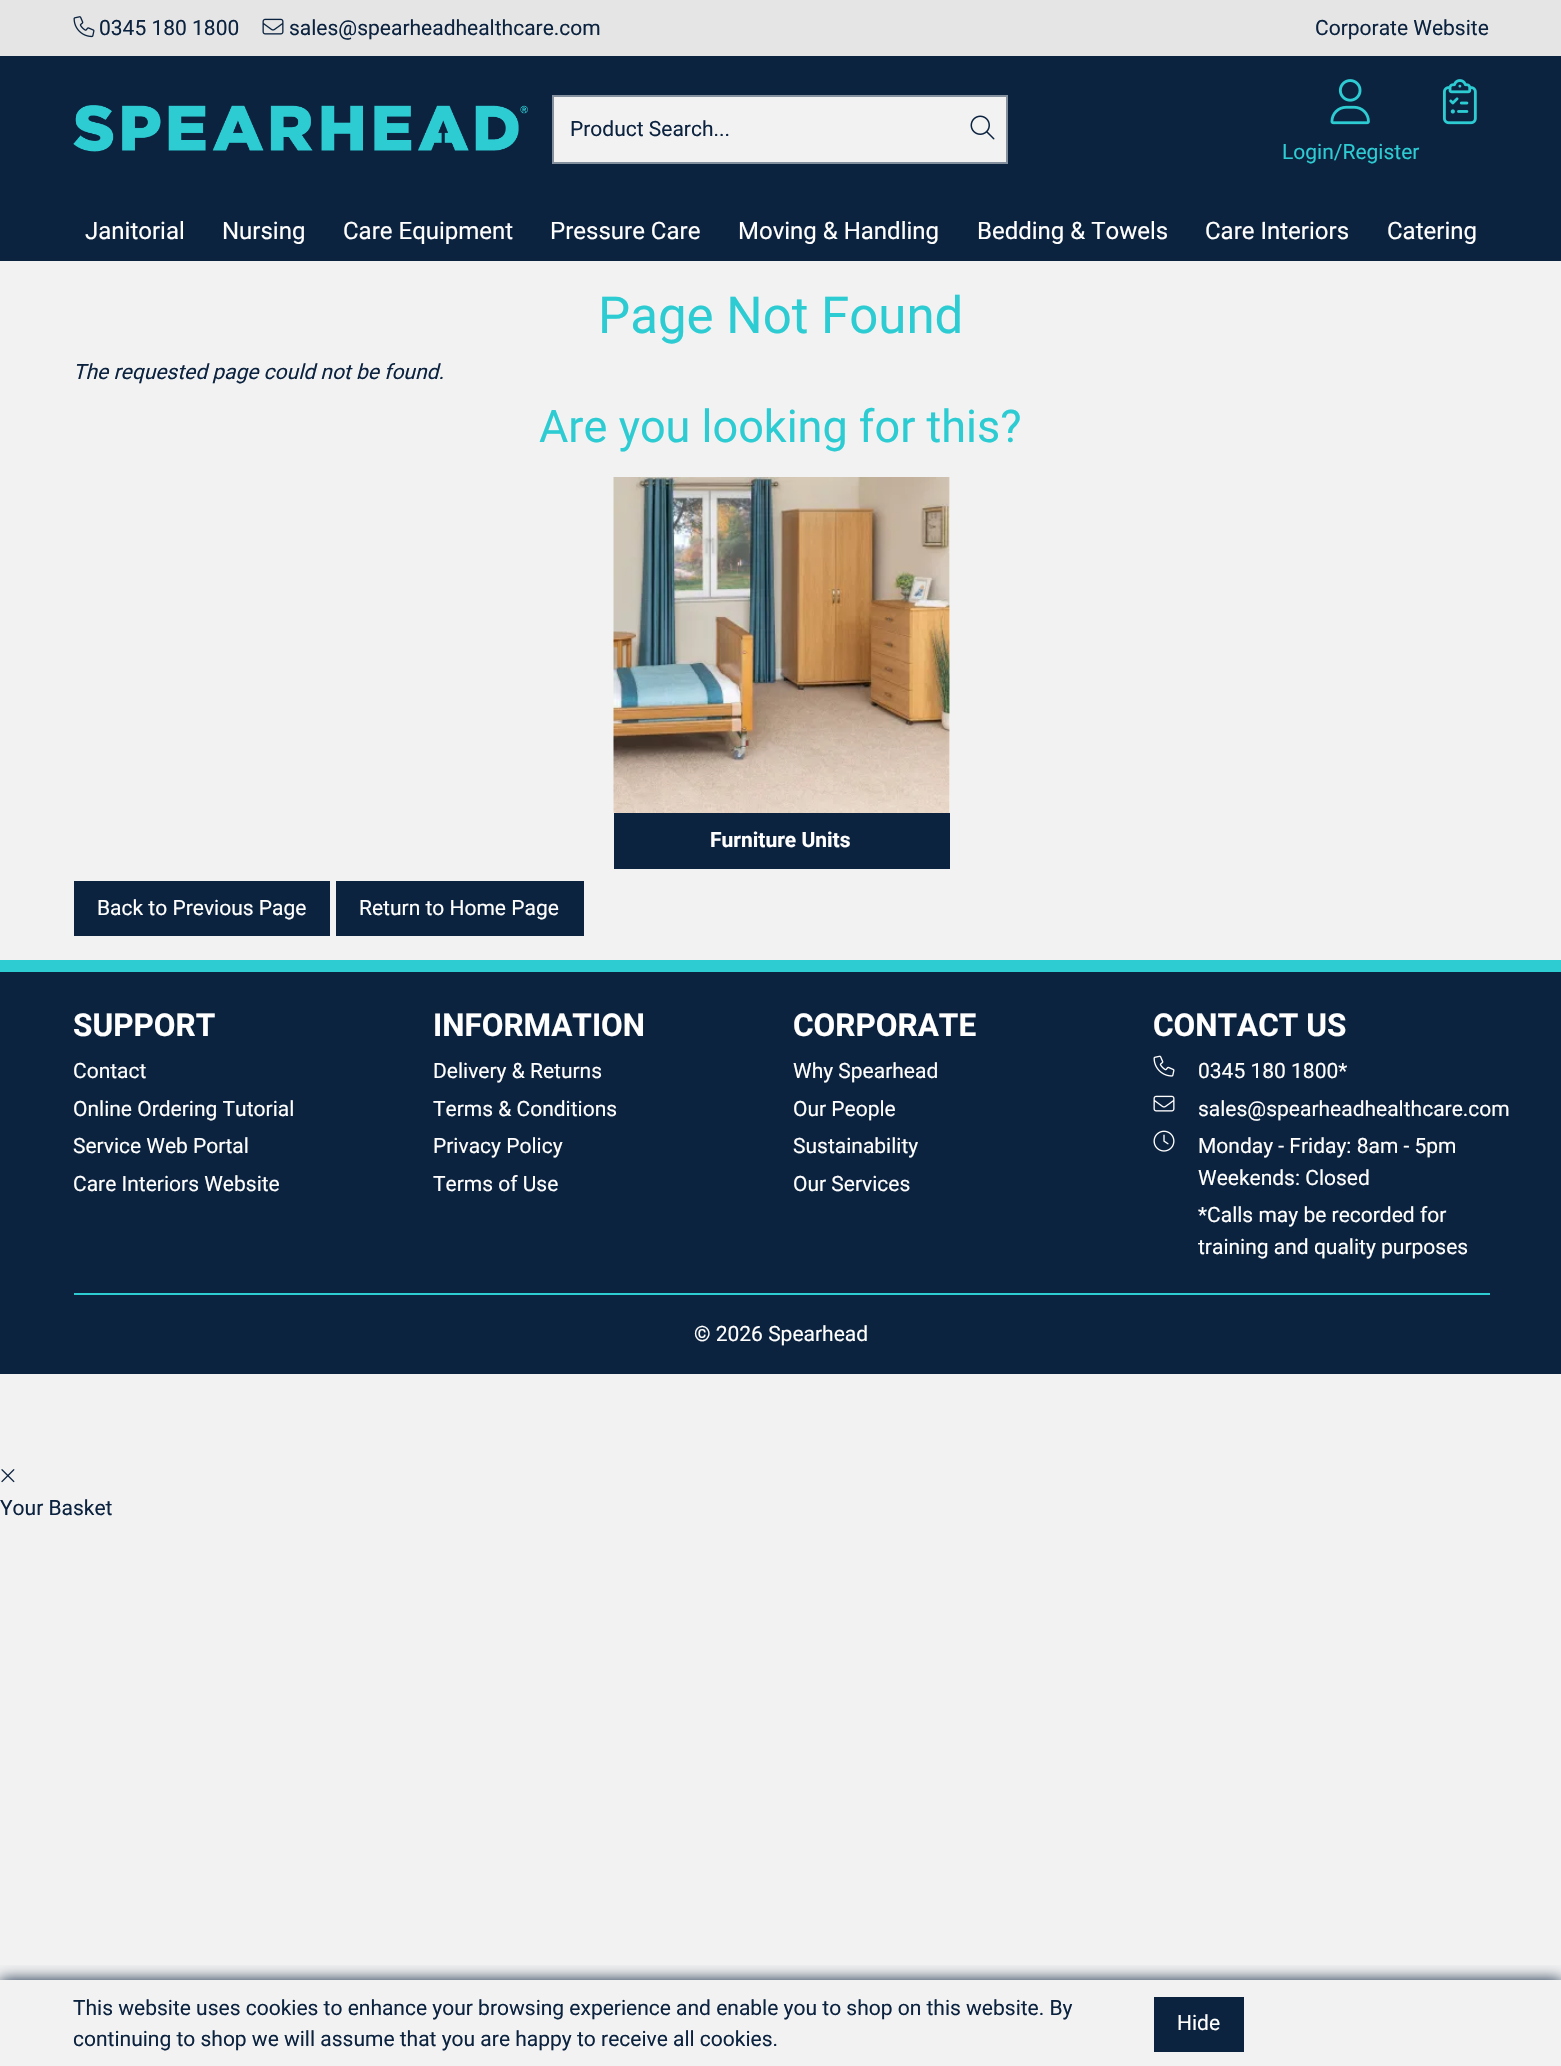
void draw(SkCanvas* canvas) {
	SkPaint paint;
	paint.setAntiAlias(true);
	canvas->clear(0xfff2f2f2);
	paint.setColor(0xffe5e5e5);
	canvas->drawRect(SkRect::MakeXYWH(0, 0, 1561, 56), paint);
	canvas->drawImageRect(SkImages::DeferredFromEncodedData(SkData::MakeFromFileName("img1.png")), SkRect::MakeXYWH(73, 16, 22, 22), SkSamplingOptions());
	SkFont f1(fontMgr->matchFamilyStyle("Roboto", SkFontStyle::Normal()), 21);
	f1.setSubpixel(true);
	paint.setColor(0xff0c2340);
	canvas->drawString("0345 180 1800", 99, 35, f1, paint);
	canvas->drawImageRect(SkImages::DeferredFromEncodedData(SkData::MakeFromFileName("img2.png")), SkRect::MakeXYWH(262, 18, 22, 17), SkSamplingOptions());
	canvas->drawString("sales@spearheadhealthcare.com", 289, 35, f1, paint);
	canvas->drawString("Corporate Website", 1315, 35, f1, paint);
	canvas->drawRect(SkRect::MakeXYWH(0, 56, 1561, 205), paint);
	canvas->drawImageRect(SkImages::DeferredFromEncodedData(SkData::MakeFromFileName("img3.png")), SkRect::MakeXYWH(73, 105, 455, 47), SkSamplingOptions());
	paint.setColor(0xfff2f2f2);
	canvas->drawRect(SkRect::MakeXYWH(553, 96, 454, 67), paint);
	paint.setStroke(true);
	paint.setStrokeWidth(2);
	paint.setColor(0xff85909f);
	canvas->drawRect(SkRect::MakeXYWH(553, 96, 454, 67), paint);
	paint.setStroke(false);
	paint.setColor(0xff0c2340);
	canvas->drawString("Product Search...", 570, 136, f1, paint);
	canvas->drawImageRect(SkImages::DeferredFromEncodedData(SkData::MakeFromFileName("img4.png")), SkRect::MakeXYWH(970, 115, 25, 25), SkSamplingOptions());
	canvas->drawImageRect(SkImages::DeferredFromEncodedData(SkData::MakeFromFileName("img5.png")), SkRect::MakeXYWH(1443, 79, 34, 46), SkSamplingOptions());
	canvas->drawImageRect(SkImages::DeferredFromEncodedData(SkData::MakeFromFileName("img6.png")), SkRect::MakeXYWH(1330, 79, 40, 46), SkSamplingOptions());
	paint.setColor(0xff2dccd3);
	canvas->drawString("Login/Register", 1282, 159, f1, paint);
	SkFont f2(fontMgr->matchFamilyStyle("Roboto", SkFontStyle::Normal()), 24);
	f2.setSubpixel(true);
	paint.setColor(0xffffffff);
	canvas->drawString("Janitorial", 85, 239, f2, paint);
	canvas->drawString("Nursing", 222, 239, f2, paint);
	canvas->drawString("Care Equipment", 343, 239, f2, paint);
	canvas->drawString("Pressure Care", 550, 239, f2, paint);
	canvas->drawString("Moving & Handling", 738, 239, f2, paint);
	canvas->drawString("Bedding & Towels", 977, 239, f2, paint);
	canvas->drawString("Care Interiors", 1205, 239, f2, paint);
	canvas->drawString("Catering", 1387, 239, f2, paint);
	SkFont f3(fontMgr->matchFamilyStyle("Roboto", SkFontStyle::Normal()), 51);
	f3.setSubpixel(true);
	paint.setColor(0xff2dccd3);
	canvas->drawString("Page Not Found", 598, 333, f3, paint);
	SkFont f4(fontMgr->matchFamilyStyle("Roboto", SkFontStyle::Italic()), 21);
	f4.setSubpixel(true);
	paint.setColor(0xff0c2340);
	canvas->drawString("The requested page could not be found.", 73, 379, f4, paint);
	SkFont f5(fontMgr->matchFamilyStyle("Roboto", SkFontStyle::Normal()), 45);
	f5.setSubpixel(true);
	paint.setColor(0xff2dccd3);
	canvas->drawString("Are you looking for this?", 539, 442, f5, paint);
	paint.setColor(0xffffffff);
	canvas->drawRect(SkRect::MakeXYWH(949, 477, 1, 336), paint);
	canvas->drawImageRect(SkImages::DeferredFromEncodedData(SkData::MakeFromFileName("img7.png")), SkRect::MakeXYWH(613, 477, 337, 336), SkSamplingOptions());
	paint.setColor(0xff0c2340);
	canvas->drawRect(SkRect::MakeXYWH(614, 813, 336, 56), paint);
	SkFont f6(fontMgr->matchFamilyStyle("Roboto", SkFontStyle::Bold()), 21);
	f6.setSubpixel(true);
	paint.setColor(0xffffffff);
	canvas->drawString("Furniture Units", 710, 847, f6, paint);
	paint.setColor(0xff0c2340);
	canvas->drawRect(SkRect::MakeXYWH(74, 881, 256, 55), paint);
	paint.setColor(0xffffffff);
	canvas->drawString("Back to Previous Page", 97, 915, f1, paint);
	paint.setColor(0xff0c2340);
	canvas->drawRect(SkRect::MakeXYWH(336, 881, 248, 55), paint);
	paint.setColor(0xffffffff);
	canvas->drawString("Return to Home Page", 359, 915, f1, paint);
	paint.setColor(0xff0c2340);
	canvas->drawRect(SkRect::MakeXYWH(0, 972, 1561, 402), paint);
	paint.setColor(0xff2dccd3);
	canvas->drawRect(SkRect::MakeXYWH(0, 960, 1561, 12), paint);
	SkFont f7(fontMgr->matchFamilyStyle("Roboto", SkFontStyle::Bold()), 31.5);
	f7.setSubpixel(true);
	paint.setColor(0xffffffff);
	canvas->drawString("SUPPORT", 73, 1036, f7, paint);
	canvas->drawString("Contact", 73, 1078, f1, paint);
	canvas->drawString("Online Ordering Tutorial", 73, 1116, f1, paint);
	canvas->drawString("Service Web Portal", 73, 1153, f1, paint);
	canvas->drawString("Care Interiors Website", 73, 1191, f1, paint);
	canvas->drawString("INFORMATION", 433, 1036, f7, paint);
	canvas->drawString("Delivery & Returns", 433, 1078, f1, paint);
	canvas->drawString("Terms & Conditions", 433, 1116, f1, paint);
	canvas->drawString("Privacy Policy", 433, 1153, f1, paint);
	canvas->drawString("Terms of Use", 433, 1191, f1, paint);
	canvas->drawString("CORPORATE", 793, 1036, f7, paint);
	canvas->drawString("Why Spearhead", 793, 1078, f1, paint);
	canvas->drawString("Our People", 793, 1116, f1, paint);
	canvas->drawString("Sustainability", 793, 1153, f1, paint);
	canvas->drawString("Our Services", 793, 1191, f1, paint);
	canvas->drawString("CONTACT US", 1153, 1036, f7, paint);
	canvas->drawImageRect(SkImages::DeferredFromEncodedData(SkData::MakeFromFileName("img8.png")), SkRect::MakeXYWH(1153, 1055, 22, 22), SkSamplingOptions());
	canvas->drawString("0345 180 1800*", 1198, 1078, f1, paint);
	canvas->drawImageRect(SkImages::DeferredFromEncodedData(SkData::MakeFromFileName("img9.png")), SkRect::MakeXYWH(1153, 1095, 22, 17), SkSamplingOptions());
	canvas->drawString("sales@spearheadhealthcare.com", 1198, 1116, f1, paint);
	canvas->drawImageRect(SkImages::DeferredFromEncodedData(SkData::MakeFromFileName("img10.png")), SkRect::MakeXYWH(1153, 1130, 22, 22), SkSamplingOptions());
	canvas->drawString("Monday - Friday: 8am - 5pm", 1198, 1153, f1, paint);
	canvas->drawString("Weekends: Closed", 1198, 1185, f1, paint);
	canvas->drawString("*Calls may be recorded for", 1198, 1222, f1, paint);
	canvas->drawString("training and quality purposes", 1198, 1254, f1, paint);
	paint.setColor(0xff2dccd3);
	canvas->drawRect(SkRect::MakeXYWH(74, 1293, 1416, 2), paint);
	paint.setColor(0xffffffff);
	canvas->drawString("© 2026 Spearhead", 694, 1341, f1, paint);
	canvas->drawImageRect(SkImages::DeferredFromEncodedData(SkData::MakeFromFileName("img11.png")), SkRect::MakeXYWH(1, 1469, 14, 14), SkSamplingOptions());
	paint.setColor(0xff0c2340);
	canvas->drawString("Your Basket", 0, 1515, f1, paint);
	canvas->save();
	canvas->clipRect(SkRect::MakeXYWH(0, 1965, 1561, 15));
	paint.setMaskFilter(SkMaskFilter::MakeBlur(kNormal_SkBlurStyle, 7.5));
	canvas->drawRect(SkRect::MakeXYWH(0, 1980, 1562, 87), paint);
	paint.setMaskFilter(nullptr);
	canvas->restore();
	canvas->drawString("This website uses cookies to enhance your browsing experience and enable you to shop on this website. By", 73, 2015, f1, paint);
	canvas->drawString("continuing to shop we will assume that you are happy to receive all cookies.", 73, 2046, f1, paint);
	canvas->drawRect(SkRect::MakeXYWH(1154, 1997, 90, 55), paint);
	paint.setColor(0xffffffff);
	canvas->drawString("Hide", 1177, 2030, f1, paint);
}
